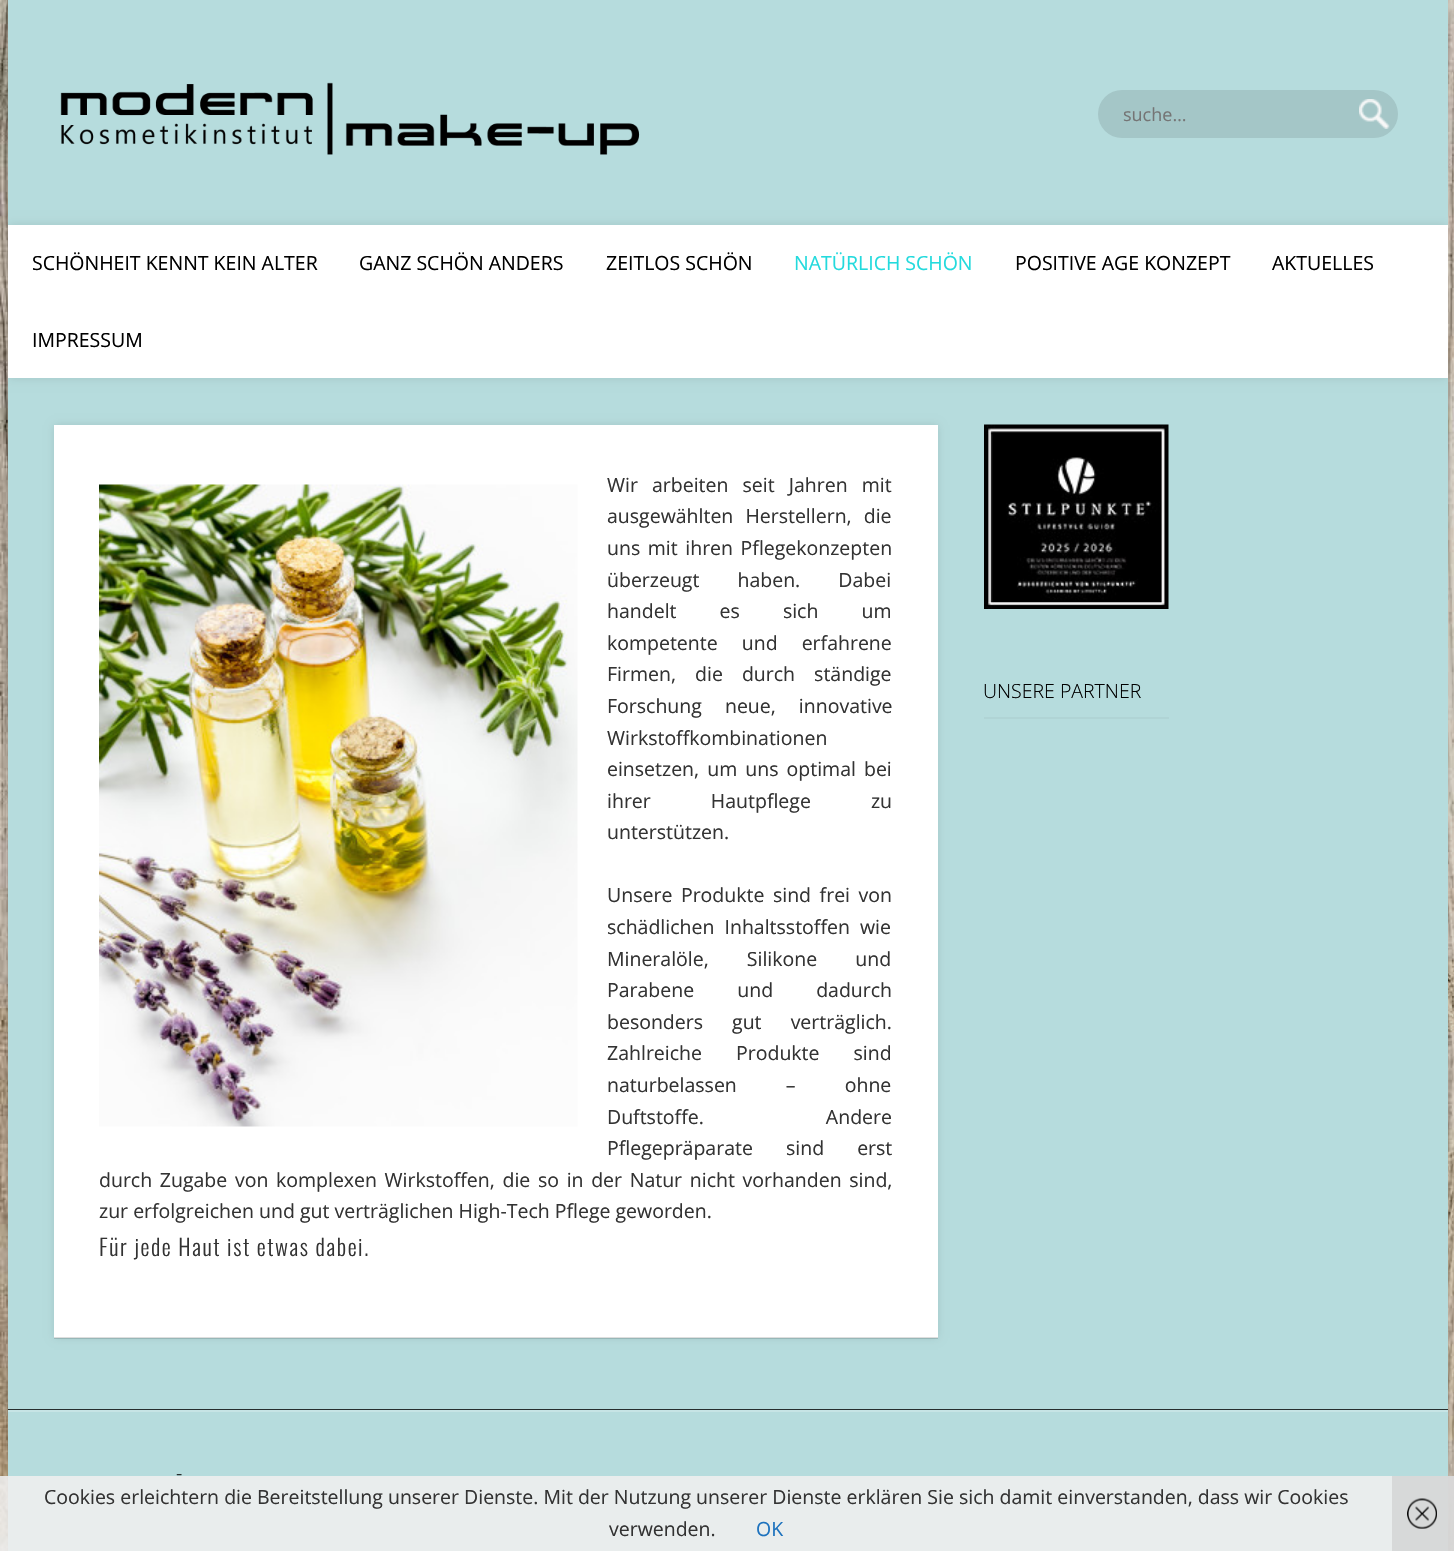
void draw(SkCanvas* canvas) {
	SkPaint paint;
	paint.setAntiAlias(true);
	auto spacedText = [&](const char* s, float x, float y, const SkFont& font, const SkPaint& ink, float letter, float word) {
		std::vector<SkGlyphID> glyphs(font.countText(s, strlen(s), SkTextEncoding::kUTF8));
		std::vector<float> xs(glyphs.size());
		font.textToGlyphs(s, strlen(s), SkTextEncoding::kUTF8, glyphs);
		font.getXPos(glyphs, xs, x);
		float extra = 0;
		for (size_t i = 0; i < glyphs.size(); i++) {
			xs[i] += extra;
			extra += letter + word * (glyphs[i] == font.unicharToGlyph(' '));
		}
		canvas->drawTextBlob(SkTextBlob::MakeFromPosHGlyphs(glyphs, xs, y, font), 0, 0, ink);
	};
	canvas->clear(0xffffffff);
	canvas->drawImageRect(SkImages::DeferredFromEncodedData(SkData::MakeFromFileName("img1.png")), SkRect::MakeXYWH(0, 0, 1454, 1551), SkSamplingOptions());
	paint.setColor(0x66000000);
	paint.setMaskFilter(SkMaskFilter::MakeBlur(kNormal_SkBlurStyle, 13.5));
	canvas->drawRect(SkRect::MakeXYWH(8, 0, 1440, 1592), paint);
	paint.setMaskFilter(nullptr);
	paint.setColor(0xffb6dcdd);
	canvas->drawRect(SkRect::MakeXYWH(8, 0, 1440, 1409), paint);
	canvas->drawImageRect(SkImages::DeferredFromEncodedData(SkData::MakeFromFileName("img2.png")), SkRect::MakeXYWH(60, 82, 580, 73), SkSamplingOptions());
	paint.setColor(0xffa4c6c7);
	canvas->drawRoundRect(SkRect::MakeXYWH(1098, 90, 300, 48), 24, 24, paint);
	canvas->drawImageRect(SkImages::DeferredFromEncodedData(SkData::MakeFromFileName("img3.png")), SkRect::MakeXYWH(1359, 99, 31, 30), SkSamplingOptions());
	SkFont f1(fontMgr->matchFamilyStyle("Open Sans", SkFontStyle::Normal()), 18);
	f1.setSubpixel(true);
	paint.setColor(0xff757575);
	canvas->drawString("suche…", 1123, 121, f1, paint);
	canvas->save();
	canvas->clipRect(SkRect::MakeXYWH(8, 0, 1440, 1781));
	paint.setColor(0x1a000000);
	paint.setMaskFilter(SkMaskFilter::MakeBlur(kNormal_SkBlurStyle, 5));
	canvas->drawRect(SkRect::MakeXYWH(8, 225, 1440, 153), paint);
	paint.setMaskFilter(nullptr);
	canvas->restore();
	paint.setColor(0xffffffff);
	canvas->drawRect(SkRect::MakeXYWH(8, 225, 1440, 153), paint);
	SkFont f2(fontMgr->matchFamilyStyle("Open Sans", SkFontStyle::Normal()), 19.5);
	f2.setSubpixel(true);
	paint.setColor(0xff000000);
	canvas->drawString("SCHÖNHEIT KENNT KEIN ALTER", 32, 270, f2, paint);
	canvas->drawString("GANZ SCHÖN ANDERS", 359, 270, f2, paint);
	canvas->drawString("ZEITLOS SCHÖN", 606, 270, f2, paint);
	paint.setColor(0xff23dadd);
	canvas->drawString("NATÜRLICH SCHÖN", 794, 270, f2, paint);
	paint.setColor(0xff000000);
	canvas->drawString("POSITIVE AGE KONZEPT", 1015, 270, f2, paint);
	canvas->drawString("AKTUELLES", 1272, 270, f2, paint);
	canvas->drawString("IMPRESSUM", 32, 347, f2, paint);
	paint.setColor(0x1a000000);
	paint.setMaskFilter(SkMaskFilter::MakeBlur(kNormal_SkBlurStyle, 4));
	canvas->drawRect(SkRect::MakeXYWH(54, 425, 884, 913), paint);
	paint.setMaskFilter(nullptr);
	paint.setColor(0xffffffff);
	canvas->drawRect(SkRect::MakeXYWH(54, 425, 884, 913), paint);
	paint.setColor(0x21000000);
	canvas->drawRect(SkRect::MakeXYWH(54, 1337, 884, 2), paint);
	canvas->drawImageRect(SkImages::DeferredFromEncodedData(SkData::MakeFromFileName("img4.png")), SkRect::MakeXYWH(99, 484, 479, 643), SkSamplingOptions());
	paint.setColor(0xff333333);
	spacedText("Wir arbeiten seit Jahren mit", 607, 492, f2, paint, 0, 9);
	spacedText("ausgewählten Herstellern, die", 607, 523, f2, paint, 0, 7);
	spacedText("uns mit ihren Pflegekonzepten", 607, 555, f2, paint, 0, 2.5);
	spacedText("überzeugt haben. Dabei", 607, 587, f2, paint, 0, 33);
	spacedText("handelt es sich um", 607, 618, f2, paint, 0, 38);
	spacedText("kompetente und erfahrene", 607, 650, f2, paint, 0, 19);
	spacedText("Firmen, die durch ständige", 607, 681, f2, paint, 0, 14);
	spacedText("Forschung neue, innovative", 607, 713, f2, paint, 0, 18);
	canvas->drawString("Wirkstoffkombinationen", 607, 745, f2, paint);
	spacedText("einsetzen, um uns optimal bei", 607, 776, f2, paint, 0, 3);
	spacedText("ihrer Hautpflege zu", 607, 808, f2, paint, 0, 55);
	canvas->drawString("unterstützen.", 607, 839, f2, paint);
	spacedText("Unsere Produkte sind frei von", 607, 902, f2, paint, 0, 3.5);
	spacedText("schädlichen Inhaltsstoffen wie", 607, 934, f2, paint, 0, 5);
	spacedText("Mineralöle, Silikone und", 607, 966, f2, paint, 0, 33);
	spacedText("Parabene und dadurch", 607, 997, f2, paint, 0, 38);
	spacedText("besonders gut verträglich.", 607, 1029, f2, paint, 0, 24);
	spacedText("Zahlreiche Produkte sind", 607, 1060, f2, paint, 0, 29);
	spacedText("naturbelassen – ohne", 607, 1092, f2, paint, 0, 44);
	spacedText("Duftstoffe. Andere", 607, 1124, f2, paint, 0, 117);
	spacedText("Pflegepräparate sind erst", 607, 1155, f2, paint, 0, 28);
	spacedText("durch Zugabe von komplexen Wirkstoffen, die so in der Natur nicht vorhanden sind,", 99, 1187, f2, paint, 0, 2.6);
	canvas->drawString("zur erfolgreichen und gut verträglichen High-Tech Pflege geworden.", 99, 1218, f2, paint);
	SkFont f3(fontMgr->matchFamilyStyle("Oswald", SkFontStyle(300, SkFontStyle::kNormal_Width, SkFontStyle::kUpright_Slant)), 22.5);
	f3.setSubpixel(true);
	spacedText("Für jede Haut ist etwas dabei.", 99, 1256, f3, paint, 1.5, 0);
	canvas->drawImageRect(SkImages::DeferredFromEncodedData(SkData::MakeFromFileName("img5.png")), SkRect::MakeXYWH(984, 424, 185, 185), SkSamplingOptions());
	paint.setColor(0xffb0d4d5);
	canvas->drawRect(SkRect::MakeXYWH(984, 717, 185, 2), paint);
	SkFont f4(fontMgr->matchFamilyStyle("Open Sans", SkFontStyle(300, SkFontStyle::kNormal_Width, SkFontStyle::kUpright_Slant)), 19.5);
	f4.setSubpixel(true);
	paint.setColor(0xff000000);
	canvas->drawString("UNSERE PARTNER", 983, 698, f4, paint);
	paint.setColor(0xff262e2e);
	canvas->drawRect(SkRect::MakeXYWH(8, 1409, 1440, 1), paint);
	paint.setColor(0xffb6dcdd);
	canvas->drawRect(SkRect::MakeXYWH(8, 1412, 1440, 139), paint);
	paint.setColor(0xffc7e4e5);
	canvas->drawRect(SkRect::MakeXYWH(8, 1410, 1440, 2), paint);
	paint.setColor(0xff000000);
	canvas->drawString("-", 176, 1480, f4, paint);
	paint.setColor(0xe6eeeeee);
	canvas->drawRect(SkRect::MakeXYWH(0, 1476, 1454, 75), paint);
	paint.setColor(0xff333333);
	canvas->drawString("Cookies erleichtern die Bereitstellung unserer Dienste. Mit der Nutzung unserer Dienste erklären Sie sich damit einverstanden, dass wir Cookies", 44, 1504, f2, paint);
	canvas->drawString("verwenden.", 609, 1536, f2, paint);
	paint.setColor(0xff1e73be);
	canvas->drawString("OK", 756, 1536, f2, paint);
	paint.setColor(0x99cccccc);
	canvas->drawRect(SkRect::MakeXYWH(1392, 1476, 62, 75), paint);
	canvas->drawImageRect(SkImages::DeferredFromEncodedData(SkData::MakeFromFileName("img6.png")), SkRect::MakeXYWH(1407, 1498, 30, 31), SkSamplingOptions());
}
